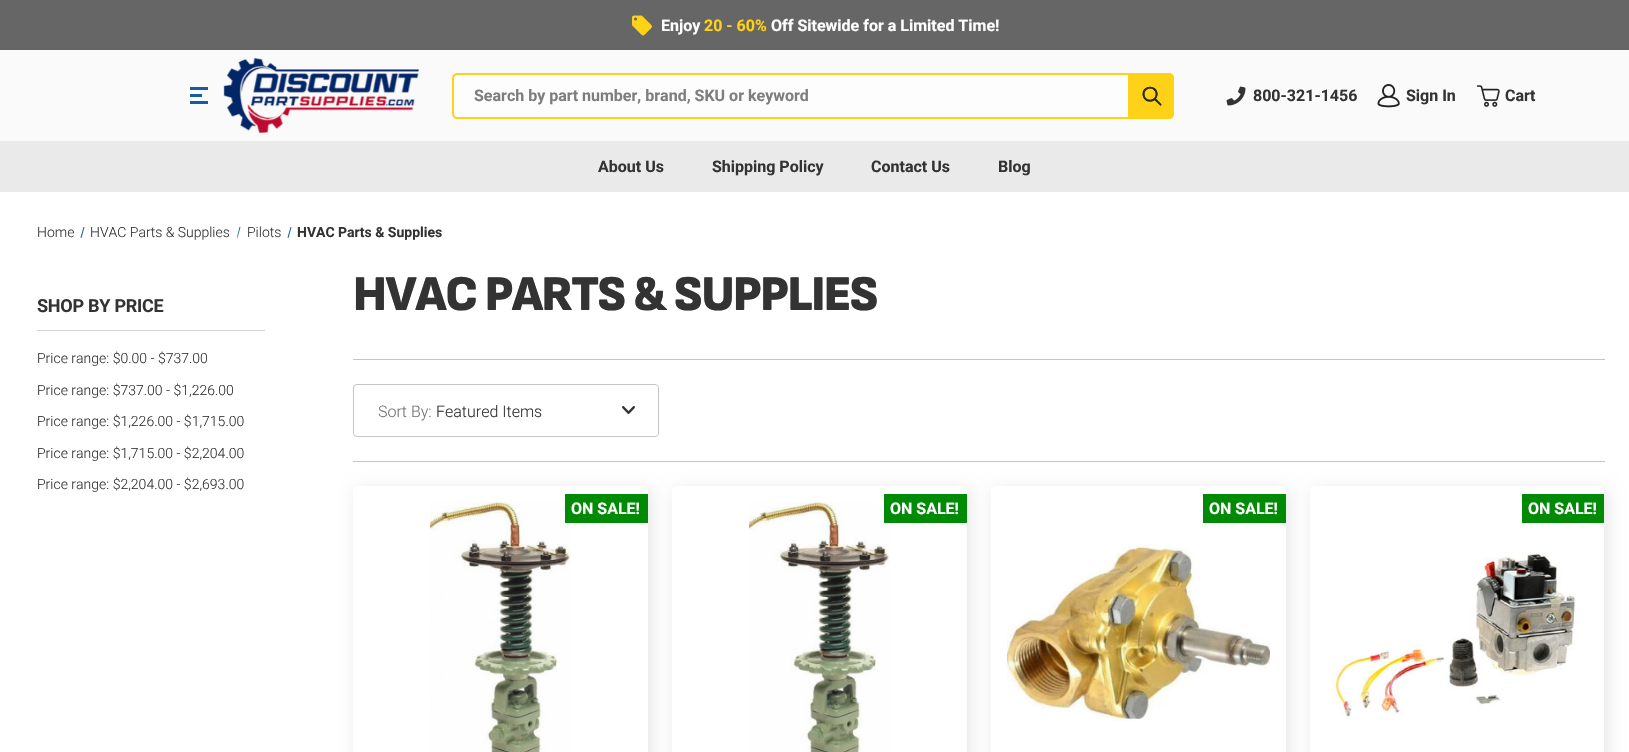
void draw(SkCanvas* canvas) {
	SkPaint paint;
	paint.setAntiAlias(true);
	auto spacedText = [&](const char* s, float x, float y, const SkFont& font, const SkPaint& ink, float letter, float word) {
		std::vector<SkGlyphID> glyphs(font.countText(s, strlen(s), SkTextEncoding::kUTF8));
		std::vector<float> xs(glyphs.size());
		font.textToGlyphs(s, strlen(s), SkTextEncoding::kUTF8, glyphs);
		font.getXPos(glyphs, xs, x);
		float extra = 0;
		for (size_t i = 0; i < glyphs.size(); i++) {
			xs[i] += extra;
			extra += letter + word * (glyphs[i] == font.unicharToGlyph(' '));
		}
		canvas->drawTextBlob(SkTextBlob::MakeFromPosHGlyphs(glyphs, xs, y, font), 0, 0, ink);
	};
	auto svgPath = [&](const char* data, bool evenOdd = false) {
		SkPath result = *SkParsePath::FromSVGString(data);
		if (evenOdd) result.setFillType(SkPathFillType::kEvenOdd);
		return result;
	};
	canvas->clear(0xffffffff);
	paint.setColor(0xfffafafa);
	canvas->drawRect(SkRect::MakeXYWH(0, 50, 1629, 91), paint);
	paint.setColor(0xff666666);
	canvas->drawRect(SkRect::MakeXYWH(0, 0, 1629, 50), paint);
	canvas->drawImageRect(SkImages::DeferredFromEncodedData(SkData::MakeFromFileName("img1.png")), SkRect::MakeXYWH(632, 15, 20, 21), SkSamplingOptions());
	SkFont f1(fontMgr->matchFamilyStyle("Roboto", SkFontStyle::Bold()), 16);
	f1.setSubpixel(true);
	paint.setColor(0xffffffff);
	canvas->drawString("Enjoy", 661, 31, f1, paint);
	paint.setColor(0xffffd217);
	canvas->drawString("20 - 60%", 704, 31, f1, paint);
	paint.setColor(0xffffffff);
	canvas->drawString("Off Sitewide for a Limited Time!", 771, 31, f1, paint);
	paint.setColor(0xff145da0);
	canvas->drawRect(SkRect::MakeXYWH(190, 94, 12, 3), paint);
	canvas->drawRect(SkRect::MakeXYWH(190, 87, 18, 3), paint);
	canvas->drawRect(SkRect::MakeXYWH(190, 101, 18, 3), paint);
	canvas->drawImageRect(SkImages::DeferredFromEncodedData(SkData::MakeFromFileName("img2.png")), SkRect::MakeXYWH(223, 58, 196, 75), SkSamplingOptions());
	paint.setColor(0xfffdfdfd);
	canvas->drawPath(svgPath("M457 74H1129V118H457C455 118 453 116 453 114V78C453 76 455 74 457 74Z"), paint);
	paint.setStroke(true);
	paint.setStrokeWidth(2);
	paint.setColor(0xffffd217);
	canvas->drawPath(svgPath("M457 74H1129V118H457C455 118 453 116 453 114V78C453 76 455 74 457 74Z"), paint);
	paint.setStroke(false);
	paint.setColor(0xff7e7e7e);
	canvas->drawString("Search by part number, brand, SKU or keyword", 474, 101, f1, paint);
	paint.setColor(0xffffd217);
	canvas->drawPath(svgPath("M1130 73H1169C1172 73 1174 75 1174 78V114C1174 117 1172 119 1169 119H1130Z"), paint);
	canvas->drawImageRect(SkImages::DeferredFromEncodedData(SkData::MakeFromFileName("img3.png")), SkRect::MakeXYWH(1142, 86, 20, 20), SkSamplingOptions());
	canvas->drawImageRect(SkImages::DeferredFromEncodedData(SkData::MakeFromFileName("img4.png")), SkRect::MakeXYWH(1226, 86, 20, 20), SkSamplingOptions());
	paint.setColor(0xff333333);
	canvas->drawString("800-321-1456", 1253, 101, f1, paint);
	canvas->drawImageRect(SkImages::DeferredFromEncodedData(SkData::MakeFromFileName("img5.png")), SkRect::MakeXYWH(1377, 84, 23, 24), SkSamplingOptions());
	canvas->drawString("Sign In", 1406, 101, f1, paint);
	canvas->drawImageRect(SkImages::DeferredFromEncodedData(SkData::MakeFromFileName("img6.png")), SkRect::MakeXYWH(1476, 85, 24, 22), SkSamplingOptions());
	canvas->drawString("Cart", 1505, 101, f1, paint);
	paint.setColor(0xffeaeaea);
	canvas->drawRect(SkRect::MakeXYWH(0, 141, 1629, 51), paint);
	paint.setColor(0xff333333);
	canvas->drawString("About Us", 598, 172, f1, paint);
	canvas->drawString("Shipping Policy", 712, 172, f1, paint);
	canvas->drawString("Contact Us", 871, 172, f1, paint);
	canvas->drawString("Blog", 998, 172, f1, paint);
	SkFont f2(fontMgr->matchFamilyStyle("Roboto", SkFontStyle(300, SkFontStyle::kNormal_Width, SkFontStyle::kUpright_Slant)), 14);
	f2.setSubpixel(true);
	canvas->drawString("Home", 37, 237, f2, paint);
	paint.setColor(0xff145da0);
	canvas->drawPath(svgPath("M83.5 227H84.5L81.5 238L80.5 237.5Z"), paint);
	paint.setColor(0xff333333);
	canvas->drawString("HVAC Parts & Supplies", 90, 237, f2, paint);
	canvas->drawString("Pilots", 247, 237, f2, paint);
	paint.setColor(0xff145da0);
	canvas->drawPath(svgPath("M239.5 227H240.5L237.5 238L237 237.5ZM290.5 227H291.5L288.5 238L287.5 237.5Z"), paint);
	SkFont f3(fontMgr->matchFamilyStyle("Roboto", SkFontStyle::Bold()), 14);
	f3.setSubpixel(true);
	paint.setColor(0xff333333);
	canvas->drawString("HVAC Parts & Supplies", 297, 237, f3, paint);
	SkFont f4(fontMgr->matchFamilyStyle("Sofia Sans", SkFontStyle(900, SkFontStyle::kNormal_Width, SkFontStyle::kUpright_Slant)), 50);
	f4.setSubpixel(true);
	spacedText("HVAC PARTS & SUPPLIES", 353, 310, f4, paint, -1.5, 0);
	paint.setColor(0xffd3d3d3);
	canvas->drawRect(SkRect::MakeXYWH(37, 330, 228, 1), paint);
	SkFont f5(fontMgr->matchFamilyStyle("Roboto", SkFontStyle::Bold()), 18);
	f5.setSubpixel(true);
	paint.setColor(0xff333333);
	spacedText("SHOP BY PRICE", 37, 312, f5, paint, -0.25, 0);
	canvas->drawString("Price range: $0.00 - $737.00", 37, 363, f2, paint);
	canvas->drawString("Price range: $737.00 - $1,226.00", 37, 395, f2, paint);
	canvas->drawString("Price range: $1,226.00 - $1,715.00", 37, 426, f2, paint);
	canvas->drawString("Price range: $1,715.00 - $2,204.00", 37, 458, f2, paint);
	canvas->drawString("Price range: $2,204.00 - $2,693.00", 37, 489, f2, paint);
	paint.setColor(0xffc4c4c4);
	canvas->drawRect(SkRect::MakeXYWH(353, 359, 1252, 1), paint);
	canvas->drawRect(SkRect::MakeXYWH(353, 461, 1252, 1), paint);
	paint.setStroke(true);
	paint.setStrokeWidth(1);
	canvas->drawRoundRect(SkRect::MakeXYWH(353.5, 384.5, 305, 52), 3.5, 3.5, paint);
	SkFont f6(fontMgr->matchFamilyStyle("Roboto", SkFontStyle(300, SkFontStyle::kNormal_Width, SkFontStyle::kUpright_Slant)), 16);
	f6.setSubpixel(true);
	paint.setStroke(false);
	paint.setColor(0xff757575);
	canvas->drawString("Sort By:", 378, 417, f6, paint);
	paint.setColor(0xffffffff);
	canvas->drawRoundRect(SkRect::MakeXYWH(436, 385, 222, 51), 4, 4, paint);
	canvas->drawImageRect(SkImages::DeferredFromEncodedData(SkData::MakeFromFileName("img7.png")), SkRect::MakeXYWH(622, 406, 13, 8), SkSamplingOptions());
	paint.setColor(0xff333333);
	canvas->drawString("Featured Items", 436, 417, f6, paint);
	paint.setColor(0x1a000000);
	paint.setMaskFilter(SkMaskFilter::MakeBlur(kNormal_SkBlurStyle, 8));
	canvas->drawRoundRect(SkRect::MakeXYWH(356, 489, 295, 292), 5, 5, paint);
	paint.setMaskFilter(nullptr);
	paint.setColor(0xffffffff);
	canvas->drawRoundRect(SkRect::MakeXYWH(353, 486, 295, 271), 5, 5, paint);
	canvas->drawImageRect(SkImages::DeferredFromEncodedData(SkData::MakeFromFileName("img8.png")), SkRect::MakeXYWH(430, 502, 141, 250), SkSamplingOptions());
	paint.setColor(0xff008a06);
	canvas->drawRect(SkRect::MakeXYWH(565, 494, 83, 29), paint);
	paint.setColor(0xffffffff);
	canvas->drawString("ON SALE!", 571, 514, f1, paint);
	paint.setColor(0x1a000000);
	paint.setMaskFilter(SkMaskFilter::MakeBlur(kNormal_SkBlurStyle, 8));
	canvas->drawRoundRect(SkRect::MakeXYWH(675, 489, 295, 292), 5, 5, paint);
	paint.setMaskFilter(nullptr);
	paint.setColor(0xffffffff);
	canvas->drawRoundRect(SkRect::MakeXYWH(672, 486, 295, 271), 5, 5, paint);
	canvas->drawImageRect(SkImages::DeferredFromEncodedData(SkData::MakeFromFileName("img8.png")), SkRect::MakeXYWH(749, 502, 141, 250), SkSamplingOptions());
	paint.setColor(0xff008a06);
	canvas->drawRect(SkRect::MakeXYWH(884, 494, 83, 29), paint);
	paint.setColor(0xffffffff);
	canvas->drawString("ON SALE!", 890, 514, f1, paint);
	paint.setColor(0x1a000000);
	paint.setMaskFilter(SkMaskFilter::MakeBlur(kNormal_SkBlurStyle, 8));
	canvas->drawRoundRect(SkRect::MakeXYWH(994, 489, 295, 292), 5, 5, paint);
	paint.setMaskFilter(nullptr);
	paint.setColor(0xffffffff);
	canvas->drawRoundRect(SkRect::MakeXYWH(991, 486, 295, 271), 5, 5, paint);
	paint.setColor(0xff008a06);
	canvas->drawRect(SkRect::MakeXYWH(1203, 494, 83, 29), paint);
	paint.setColor(0xffffffff);
	canvas->drawString("ON SALE!", 1209, 514, f1, paint);
	canvas->drawImageRect(SkImages::DeferredFromEncodedData(SkData::MakeFromFileName("img9.png")), SkRect::MakeXYWH(1007, 543, 263, 178), SkSamplingOptions());
	paint.setColor(0x1a000000);
	paint.setMaskFilter(SkMaskFilter::MakeBlur(kNormal_SkBlurStyle, 8));
	canvas->drawRoundRect(SkRect::MakeXYWH(1313, 489, 294, 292), 5, 5, paint);
	paint.setMaskFilter(nullptr);
	paint.setColor(0xffffffff);
	canvas->drawRoundRect(SkRect::MakeXYWH(1310, 486, 294, 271), 5, 5, paint);
	paint.setColor(0xff008a06);
	canvas->drawRect(SkRect::MakeXYWH(1522, 494, 82, 29), paint);
	paint.setColor(0xffffffff);
	canvas->drawString("ON SALE!", 1528, 514, f1, paint);
	canvas->drawImageRect(SkImages::DeferredFromEncodedData(SkData::MakeFromFileName("img10.png")), SkRect::MakeXYWH(1332, 552, 243, 166), SkSamplingOptions());
}
